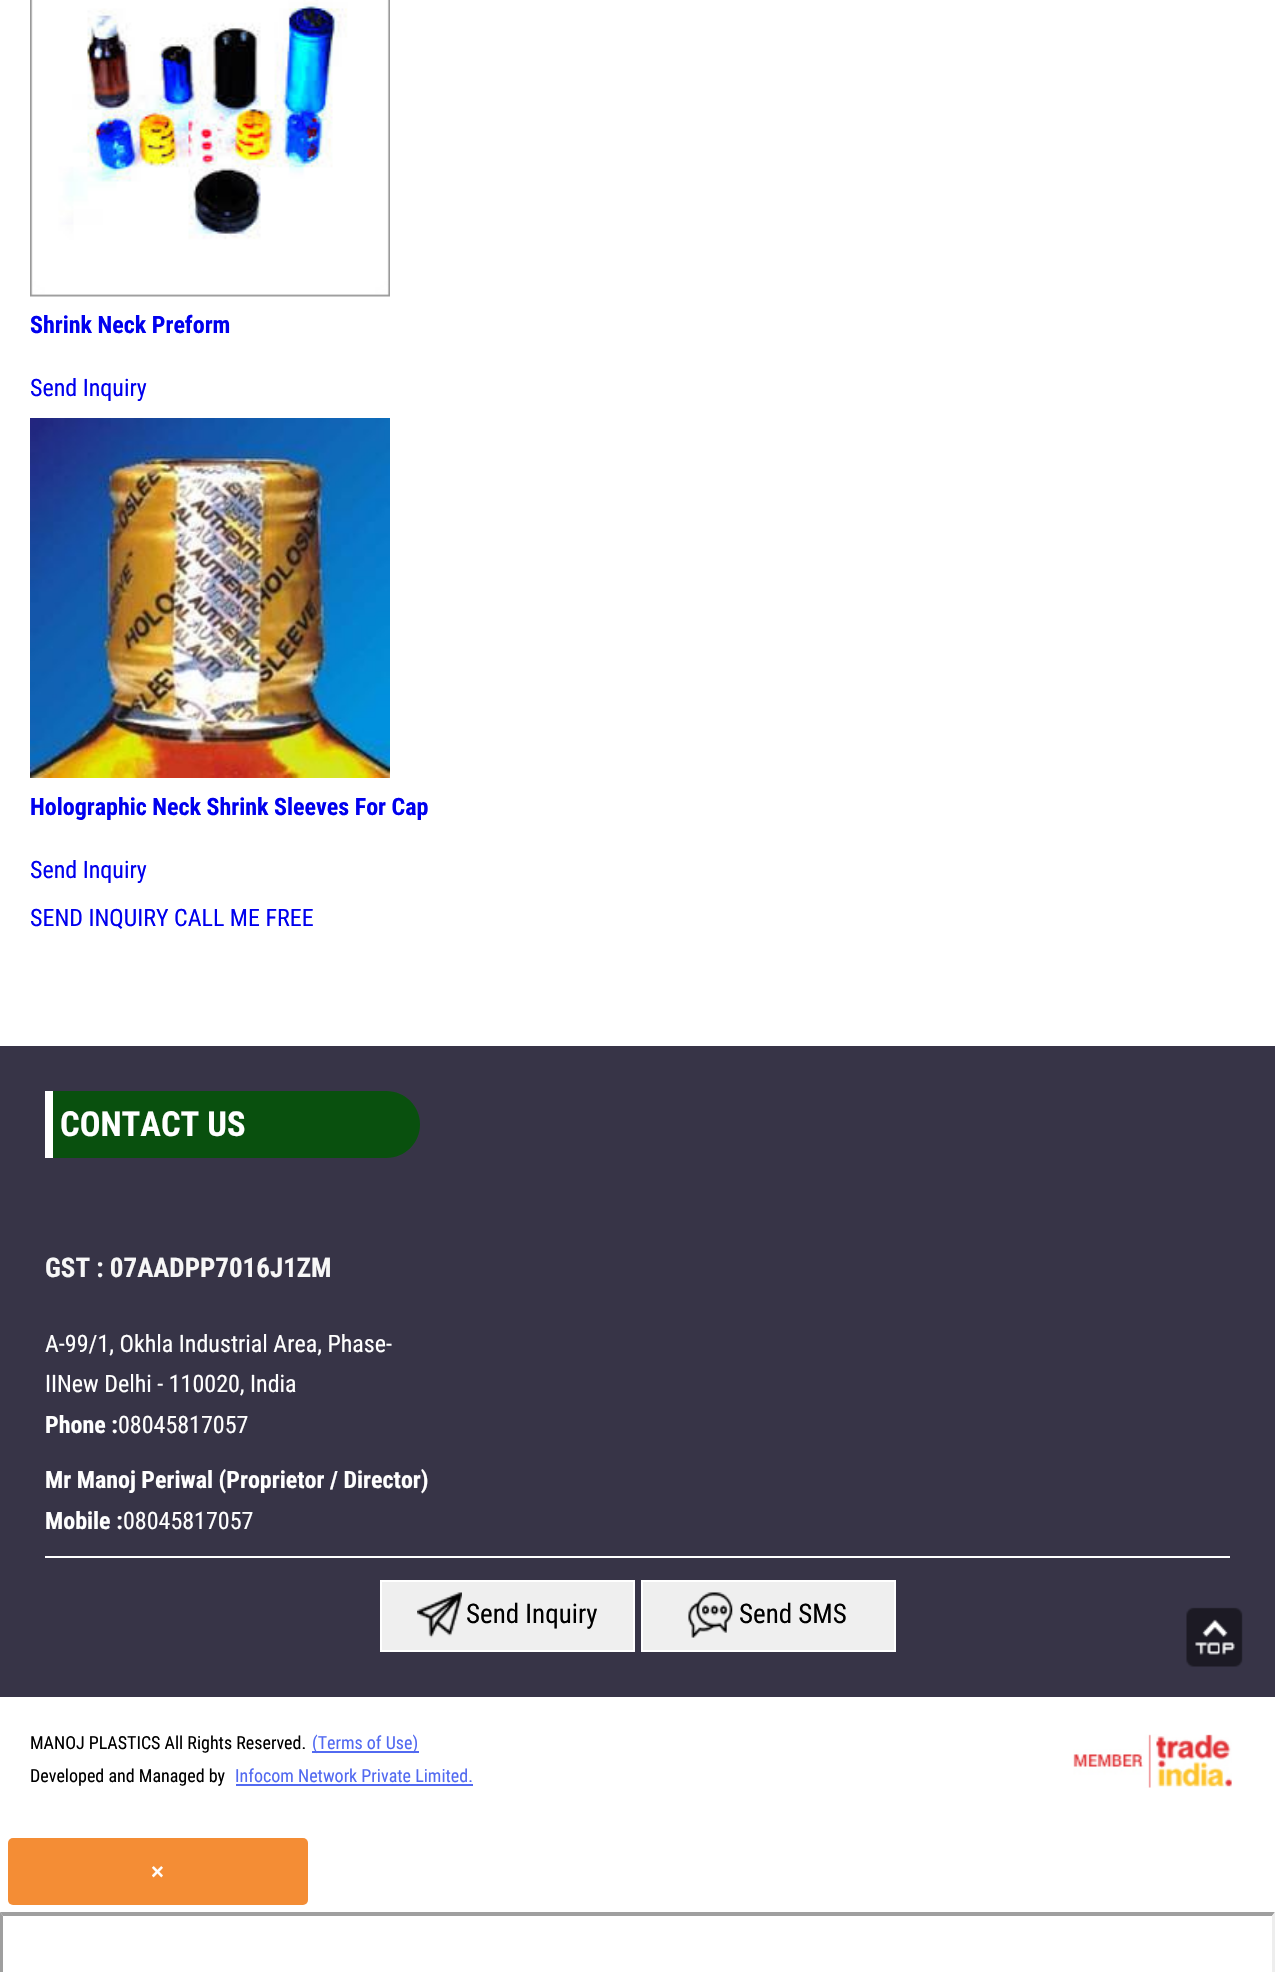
void draw(SkCanvas* canvas) {
	SkPaint paint;
	paint.setAntiAlias(true);
	auto svgPath = [&](const char* data, bool evenOdd = false) {
		SkPath result = *SkParsePath::FromSVGString(data);
		if (evenOdd) result.setFillType(SkPathFillType::kEvenOdd);
		return result;
	};
	canvas->clear(0xffffffff);
	canvas->drawImageRect(SkImages::DeferredFromEncodedData(SkData::MakeFromFileName("img1.png")), SkRect::MakeXYWH(30, 0, 360, 297), SkSamplingOptions());
	SkFont f1(fontMgr->matchFamilyStyle("Roboto Condensed", SkFontStyle::Bold()), 24);
	f1.setSubpixel(true);
	paint.setColor(0xff0000ee);
	canvas->drawString("Shrink Neck Preform", 30, 333, f1, paint);
	SkFont f2(fontMgr->matchFamilyStyle("Roboto Condensed", SkFontStyle::Normal()), 24);
	f2.setSubpixel(true);
	canvas->drawString("Send Inquiry", 30, 396, f2, paint);
	canvas->drawImageRect(SkImages::DeferredFromEncodedData(SkData::MakeFromFileName("img2.png")), SkRect::MakeXYWH(30, 418, 360, 360), SkSamplingOptions());
	canvas->drawString("Holographic Neck Shrink Sleeves For Cap", 30, 815, f1, paint);
	canvas->drawString("Send Inquiry", 30, 878, f2, paint);
	canvas->drawString("SEND INQUIRY CALL ME FREE", 30, 926, f2, paint);
	paint.setColor(0xff373447);
	canvas->drawRect(SkRect::MakeXYWH(0, 1046, 1275, 651), paint);
	paint.setColor(0xff09500e);
	canvas->drawPath(svgPath("M45 1091H386.5C405 1091 420 1106 420 1124.5C420 1143 405 1158 386.5 1158H45Z"), paint);
	paint.setColor(0xffffffff);
	canvas->drawRect(SkRect::MakeXYWH(45, 1091, 8, 67), paint);
	SkFont f3(fontMgr->matchFamilyStyle("Roboto Condensed", SkFontStyle::Bold()), 34.5);
	f3.setSubpixel(true);
	canvas->drawString("CONTACT US", 60, 1136, f3, paint);
	SkFont f4(fontMgr->matchFamilyStyle("Roboto Condensed", SkFontStyle::Bold()), 27);
	f4.setSubpixel(true);
	paint.setColor(0xfff7f7f7);
	canvas->drawString("GST : 07AADPP7016J1ZM", 45, 1277, f4, paint);
	paint.setColor(0xffffffff);
	canvas->drawString("A-99/1, Okhla Industrial Area, Phase-", 45, 1352, f2, paint);
	canvas->drawString("IINew Delhi - 110020, India", 45, 1392, f2, paint);
	canvas->drawString("Phone :", 45, 1433, f1, paint);
	canvas->drawString("08045817057", 118, 1433, f2, paint);
	canvas->drawString("Mr Manoj Periwal (Proprietor / Director)", 45, 1488, f1, paint);
	canvas->drawString("Mobile :", 45, 1529, f1, paint);
	canvas->drawString("08045817057", 123, 1529, f2, paint);
	canvas->drawRect(SkRect::MakeXYWH(45, 1556, 1185, 2), paint);
	paint.setColor(0xffefefef);
	canvas->drawRect(SkRect::MakeXYWH(381, 1581, 253, 70), paint);
	paint.setStroke(true);
	paint.setStrokeWidth(2);
	paint.setColor(0xffffffff);
	canvas->drawRect(SkRect::MakeXYWH(381, 1581, 253, 70), paint);
	canvas->drawImageRect(SkImages::DeferredFromEncodedData(SkData::MakeFromFileName("img3.png")), SkRect::MakeXYWH(417, 1592, 45, 46), SkSamplingOptions());
	SkFont f5(fontMgr->matchFamilyStyle("Roboto Condensed", SkFontStyle::Normal()), 27);
	f5.setSubpixel(true);
	paint.setStroke(false);
	paint.setColor(0xff000000);
	canvas->drawString("Send Inquiry", 466, 1623, f5, paint);
	paint.setColor(0xffefefef);
	canvas->drawRect(SkRect::MakeXYWH(642, 1581, 253, 70), paint);
	paint.setStroke(true);
	paint.setColor(0xffffffff);
	canvas->drawRect(SkRect::MakeXYWH(642, 1581, 253, 70), paint);
	canvas->drawImageRect(SkImages::DeferredFromEncodedData(SkData::MakeFromFileName("img4.png")), SkRect::MakeXYWH(688, 1592, 45, 46), SkSamplingOptions());
	paint.setStroke(false);
	paint.setColor(0xff000000);
	canvas->drawString("Send SMS", 739, 1623, f5, paint);
	canvas->drawImageRect(SkImages::DeferredFromEncodedData(SkData::MakeFromFileName("img5.png")), SkRect::MakeXYWH(1186, 1607, 57, 60), SkSamplingOptions());
	SkFont f6(fontMgr->matchFamilyStyle("Roboto Condensed", SkFontStyle::Normal()), 18);
	f6.setSubpixel(true);
	canvas->drawString("MANOJ PLASTICS All Rights Reserved.", 30, 1749, f6, paint);
	paint.setColor(0xff526af1);
	canvas->drawRect(SkRect::MakeXYWH(312, 1751, 107, 2), paint);
	canvas->drawString("(Terms of Use)", 312, 1749, f6, paint);
	paint.setColor(0xff000000);
	canvas->drawString("Developed and Managed by", 30, 1782, f6, paint);
	paint.setColor(0xff526af1);
	canvas->drawString("Infocom Network Private Limited.", 235, 1782, f6, paint);
	canvas->drawRect(SkRect::MakeXYWH(236, 1784, 237, 2), paint);
	canvas->drawImageRect(SkImages::DeferredFromEncodedData(SkData::MakeFromFileName("img6.png")), SkRect::MakeXYWH(1073, 1734, 159, 54), SkSamplingOptions());
	paint.setColor(0xfff48d35);
	canvas->drawRoundRect(SkRect::MakeXYWH(8, 1838, 300, 67), 5, 5, paint);
	SkFont f7(fontMgr->matchFamilyStyle("Liberation Sans", SkFontStyle::Bold()), 22);
	f7.setSubpixel(true);
	paint.setColor(0xffffffff);
	canvas->drawString("×", 151, 1879, f7, paint);
	paint.setColor(0xff9f9f9f);
	canvas->drawPath(svgPath("M0 1912H1275L1272 1916H3Z"), paint);
	canvas->drawPath(svgPath("M0 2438V1912L3 1916V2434Z"), paint);
	paint.setColor(0xffeeeeee);
	canvas->drawPath(svgPath("M1275 1912V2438L1272 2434V1916Z"), paint);
}
